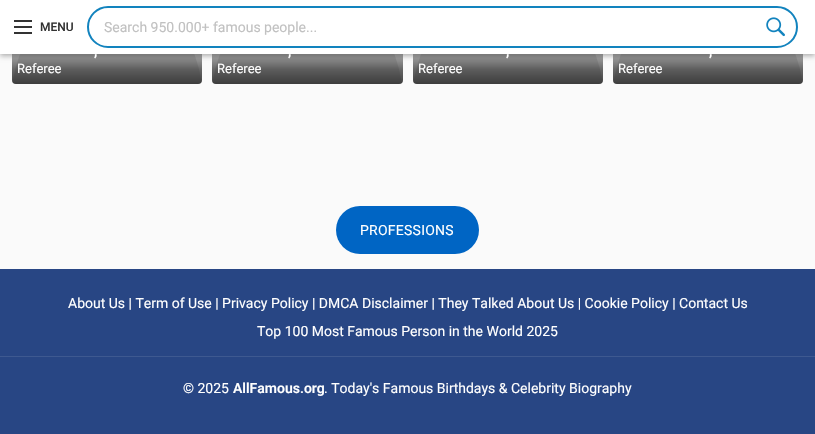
void draw(SkCanvas* canvas) {
	SkPaint paint;
	paint.setAntiAlias(true);
	auto spacedText = [&](const char* s, float x, float y, const SkFont& font, const SkPaint& ink, float letter, float word) {
		std::vector<SkGlyphID> glyphs(font.countText(s, strlen(s), SkTextEncoding::kUTF8));
		std::vector<float> xs(glyphs.size());
		font.textToGlyphs(s, strlen(s), SkTextEncoding::kUTF8, glyphs);
		font.getXPos(glyphs, xs, x);
		float extra = 0;
		for (size_t i = 0; i < glyphs.size(); i++) {
			xs[i] += extra;
			extra += letter + word * (glyphs[i] == font.unicharToGlyph(' '));
		}
		canvas->drawTextBlob(SkTextBlob::MakeFromPosHGlyphs(glyphs, xs, y, font), 0, 0, ink);
	};
	canvas->clear(0xfffafafa);
	paint.setColor(0xffe0e0e0);
	canvas->drawRoundRect(SkRect::MakeXYWH(12, -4, 190, 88), 4, 4, paint);
	canvas->drawImageRect(SkImages::DeferredFromEncodedData(SkData::MakeFromFileName("img2.png")), SkRect::MakeXYWH(12, 54, 190, 30), SkSamplingOptions());
	{
		const SkColor colors[] = {0x00000000, 0x8c000000, 0xb3000000};
		const float stops[] = {0, 0.65, 1};
		const SkPoint ends[] = {{107, 43}, {107, 84}};
		paint.setShader(SkGradientShader::MakeLinear(ends, colors, stops, 3, SkTileMode::kClamp));
		paint.setAlpha(255);
	}
	canvas->drawRoundRect(SkRect::MakeXYWH(12, 43, 190, 41), 4, 4, paint);
	paint.setShader(nullptr);
	paint.setColor(0xffe0e0e0);
	canvas->drawRoundRect(SkRect::MakeXYWH(212, -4, 191, 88), 4, 4, paint);
	canvas->drawImageRect(SkImages::DeferredFromEncodedData(SkData::MakeFromFileName("img3.png")), SkRect::MakeXYWH(212, 54, 190, 30), SkSamplingOptions());
	{
		const SkColor colors[] = {0x00000000, 0x8c000000, 0xb3000000};
		const float stops[] = {0, 0.65, 1};
		const SkPoint ends[] = {{308, 43}, {308, 84}};
		paint.setShader(SkGradientShader::MakeLinear(ends, colors, stops, 3, SkTileMode::kClamp));
		paint.setAlpha(255);
	}
	canvas->drawRoundRect(SkRect::MakeXYWH(212, 43, 191, 41), 4, 4, paint);
	paint.setShader(nullptr);
	paint.setColor(0xffe0e0e0);
	canvas->drawRoundRect(SkRect::MakeXYWH(413, -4, 190, 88), 4, 4, paint);
	canvas->drawImageRect(SkImages::DeferredFromEncodedData(SkData::MakeFromFileName("img2.png")), SkRect::MakeXYWH(413, 54, 190, 30), SkSamplingOptions());
	{
		const SkColor colors[] = {0x00000000, 0x8c000000, 0xb3000000};
		const float stops[] = {0, 0.65, 1};
		const SkPoint ends[] = {{508, 43}, {508, 84}};
		paint.setShader(SkGradientShader::MakeLinear(ends, colors, stops, 3, SkTileMode::kClamp));
		paint.setAlpha(255);
	}
	canvas->drawRoundRect(SkRect::MakeXYWH(413, 43, 190, 41), 4, 4, paint);
	paint.setShader(nullptr);
	paint.setColor(0xffe0e0e0);
	canvas->drawRoundRect(SkRect::MakeXYWH(613, -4, 190, 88), 4, 4, paint);
	canvas->drawImageRect(SkImages::DeferredFromEncodedData(SkData::MakeFromFileName("img2.png")), SkRect::MakeXYWH(613, 54, 190, 30), SkSamplingOptions());
	{
		const SkColor colors[] = {0x00000000, 0x8c000000, 0xb3000000};
		const float stops[] = {0, 0.65, 1};
		const SkPoint ends[] = {{708, 43}, {708, 84}};
		paint.setShader(SkGradientShader::MakeLinear(ends, colors, stops, 3, SkTileMode::kClamp));
		paint.setAlpha(255);
	}
	canvas->drawRoundRect(SkRect::MakeXYWH(613, 43, 190, 41), 4, 4, paint);
	paint.setShader(nullptr);
	paint.setColor(0x4d000000);
	paint.setMaskFilter(SkMaskFilter::MakeBlur(kNormal_SkBlurStyle, 2.5));
	canvas->drawRect(SkRect::MakeXYWH(0, 2, 815, 54), paint);
	paint.setMaskFilter(nullptr);
	paint.setColor(0xffffffff);
	canvas->drawRect(SkRect::MakeXYWH(0, 0, 815, 54), paint);
	paint.setColor(0xff333333);
	canvas->drawRect(SkRect::MakeXYWH(14, 26, 18, 2), paint);
	canvas->drawRect(SkRect::MakeXYWH(14, 20, 18, 2), paint);
	canvas->drawRect(SkRect::MakeXYWH(14, 32, 18, 2), paint);
	SkFont f1(fontMgr->matchFamilyStyle("Roboto", SkFontStyle(500, SkFontStyle::kNormal_Width, SkFontStyle::kUpright_Slant)), 12);
	f1.setSubpixel(true);
	canvas->drawString("MENU", 40, 31, f1, paint);
	paint.setStroke(true);
	paint.setStrokeWidth(2);
	paint.setColor(0xff1283be);
	canvas->drawRoundRect(SkRect::MakeXYWH(88, 7, 709, 40), 20, 20, paint);
	SkFont f2(fontMgr->matchFamilyStyle("Roboto", SkFontStyle::Normal()), 14);
	f2.setSubpixel(true);
	paint.setStroke(false);
	paint.setColor(0xffc1c1c1);
	canvas->drawString("Search 950.000+ famous people...", 104, 32, f2, paint);
	canvas->drawImageRect(SkImages::DeferredFromEncodedData(SkData::MakeFromFileName("img1.png")), SkRect::MakeXYWH(766, 17, 19, 20), SkSamplingOptions());
	SkFont f3(fontMgr->matchFamilyStyle("Roboto", SkFontStyle(600, SkFontStyle::kNormal_Width, SkFontStyle::kUpright_Slant)), 14);
	f3.setSubpixel(true);
	paint.setColor(0xffffffff);
	canvas->drawString(",", 94, 56, f3, paint);
	SkFont f4(fontMgr->matchFamilyStyle("Roboto", SkFontStyle::Normal()), 13);
	f4.setSubpixel(true);
	canvas->drawString("Referee", 17, 73, f4, paint);
	canvas->drawString(",", 288, 56, f3, paint);
	canvas->drawString("Referee", 217, 73, f4, paint);
	canvas->drawString(",", 506, 56, f3, paint);
	canvas->drawString("Referee", 418, 73, f4, paint);
	canvas->drawString(",", 709, 56, f3, paint);
	canvas->drawString("Referee", 618, 73, f4, paint);
	paint.setColor(0xff0065c4);
	canvas->drawRoundRect(SkRect::MakeXYWH(336, 206, 143, 48), 24, 24, paint);
	paint.setColor(0xffffffff);
	spacedText("PROFESSIONS", 360, 235, f2, paint, 0.25, 0);
	paint.setColor(0xff284684);
	canvas->drawRect(SkRect::MakeXYWH(0, 269, 815, 165), paint);
	paint.setColor(0xffffffff);
	canvas->drawString("About Us | Term of Use | Privacy Policy | DMCA Disclaimer | They Talked About Us | Cookie Policy | Contact Us", 68, 308, f2, paint);
	canvas->drawString("Top 100 Most Famous Person in the World 2025", 257, 336, f2, paint);
	paint.setColor(0xff3e5990);
	canvas->drawRect(SkRect::MakeXYWH(0, 356, 815, 1), paint);
	paint.setColor(0xffffffff);
	canvas->drawString("© 2025", 183, 393, f2, paint);
	canvas->drawString("AllFamous.org", 233, 393, f3, paint);
	canvas->drawString(". Today's Famous Birthdays & Celebrity Biography", 324, 393, f2, paint);
}
